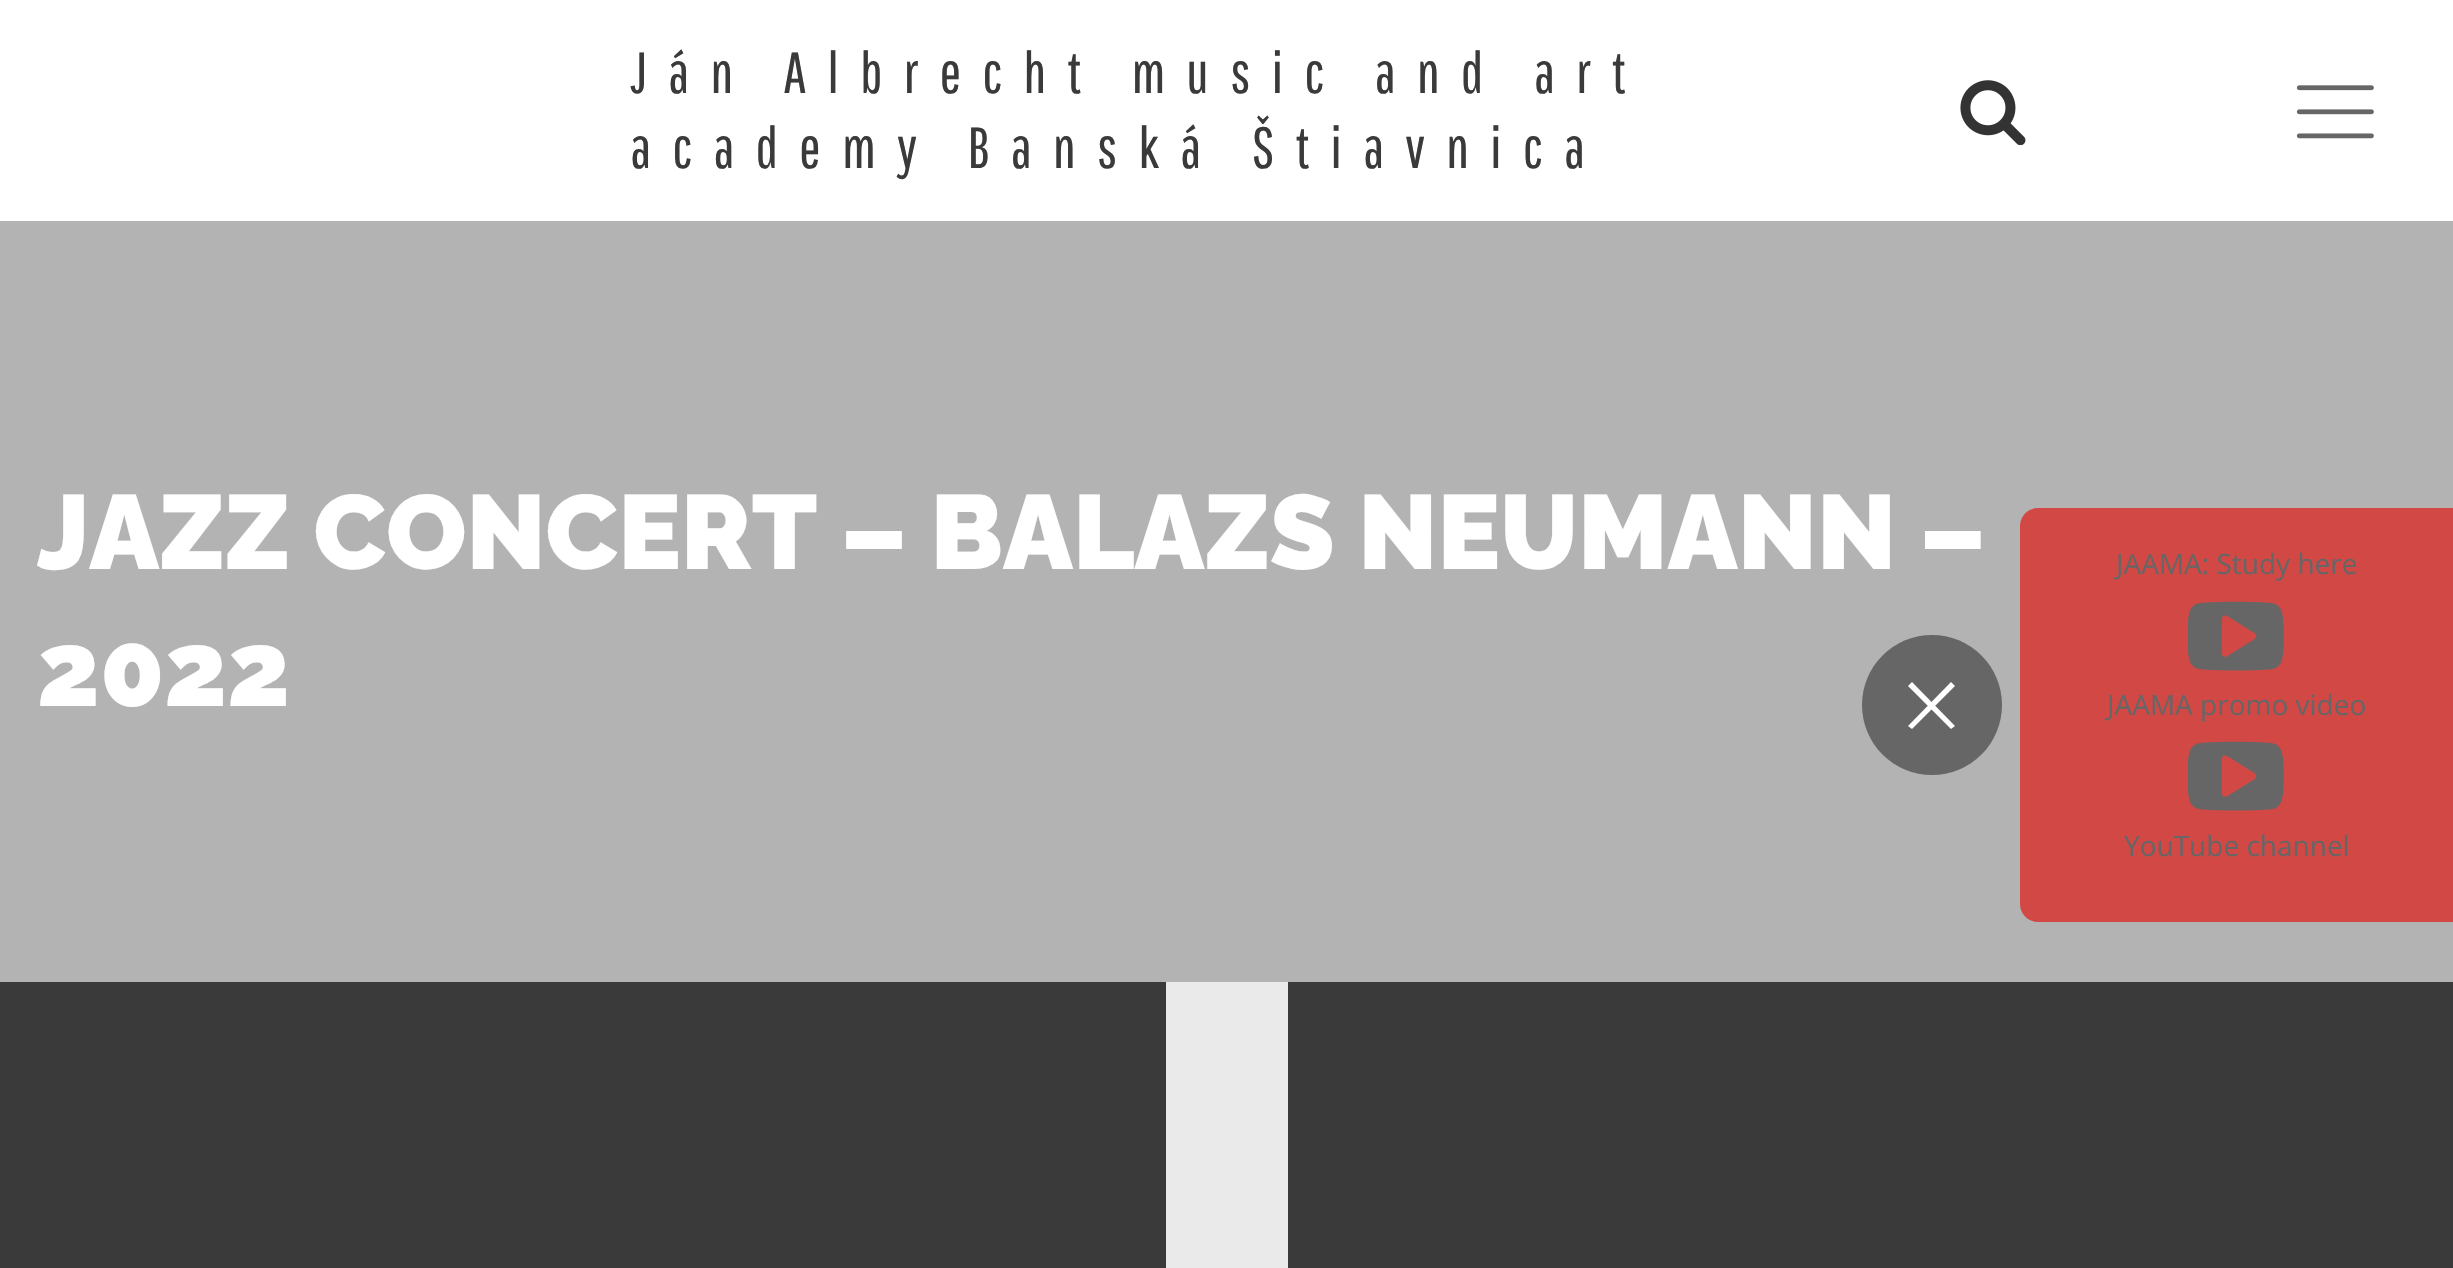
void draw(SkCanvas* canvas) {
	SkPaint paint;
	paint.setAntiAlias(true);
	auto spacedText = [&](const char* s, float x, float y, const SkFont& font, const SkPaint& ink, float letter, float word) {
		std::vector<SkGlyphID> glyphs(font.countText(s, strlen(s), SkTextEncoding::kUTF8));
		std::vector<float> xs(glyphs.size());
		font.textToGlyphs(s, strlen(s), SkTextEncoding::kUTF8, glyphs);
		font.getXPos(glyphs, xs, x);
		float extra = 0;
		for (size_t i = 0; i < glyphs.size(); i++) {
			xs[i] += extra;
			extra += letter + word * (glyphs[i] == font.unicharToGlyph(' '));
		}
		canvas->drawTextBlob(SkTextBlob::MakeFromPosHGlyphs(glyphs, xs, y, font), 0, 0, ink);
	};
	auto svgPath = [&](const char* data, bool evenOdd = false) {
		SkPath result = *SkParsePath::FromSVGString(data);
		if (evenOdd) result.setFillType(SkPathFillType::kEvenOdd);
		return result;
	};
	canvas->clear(0xffffffff);
	SkFont f1(fontMgr->matchFamilyStyle("Pathway Gothic One", SkFontStyle::Normal()), 57.75);
	f1.setSubpixel(true);
	paint.setColor(0xff3a3a3a);
	spacedText("Ján Albrecht music and art", 630, 93, f1, paint, 21, 0);
	spacedText("academy Banská Štiavnica", 630, 168, f1, paint, 21, 0);
	canvas->drawImageRect(SkImages::DeferredFromEncodedData(SkData::MakeFromFileName("img1.png")), SkRect::MakeXYWH(1960, 80, 66, 65), SkSamplingOptions());
	canvas->drawImageRect(SkImages::DeferredFromEncodedData(SkData::MakeFromFileName("img2.png")), SkRect::MakeXYWH(2296, 85, 78, 54), SkSamplingOptions());
	paint.setColor(0xffb3b3b3);
	canvas->drawRect(SkRect::MakeXYWH(0, 221, 2453, 761), paint);
	SkFont f2(fontMgr->matchFamilyStyle("Raleway", SkFontStyle(900, SkFontStyle::kNormal_Width, SkFontStyle::kUpright_Slant)), 105);
	f2.setSubpixel(true);
	paint.setColor(0xffffffff);
	canvas->drawString("JAZZ CONCERT – BALAZS NEUMANN –", 37, 569, f2, paint);
	canvas->drawString("2022", 37, 706, f2, paint);
	paint.setColor(0xccda2d29);
	canvas->drawPath(svgPath("M2038 508H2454V922H2038C2028 922 2020 914 2020 904V526C2020 516 2028 508 2038 508Z"), paint);
	SkFont f3(fontMgr->matchFamilyStyle("Open Sans", SkFontStyle::Normal()), 28);
	f3.setSubpixel(true);
	paint.setColor(0xff666666);
	canvas->drawString("JAAMA: Study here", 2116, 574, f3, paint);
	canvas->drawImageRect(SkImages::DeferredFromEncodedData(SkData::MakeFromFileName("img3.png")), SkRect::MakeXYWH(2188, 601, 96, 70), SkSamplingOptions());
	canvas->drawCircle(1932, 705, 70, paint);
	paint.setColor(0xffffffff);
	canvas->drawPath(svgPath("M1908 726L1951 682L1955 686L1912 729Z"), paint);
	canvas->drawPath(svgPath("M1912 682L1955 726L1951 729L1908 686Z"), paint);
	paint.setColor(0xff666666);
	canvas->drawString("JAAMA promo video", 2107, 715, f3, paint);
	canvas->drawImageRect(SkImages::DeferredFromEncodedData(SkData::MakeFromFileName("img3.png")), SkRect::MakeXYWH(2188, 741, 96, 70), SkSamplingOptions());
	canvas->drawString("YouTube channel", 2124, 856, f3, paint);
	paint.setColor(0xff3a3a3a);
	canvas->drawRect(SkRect::MakeXYWH(0, 982, 2453, 286), paint);
	paint.setColor(0xffeaeaea);
	canvas->drawRect(SkRect::MakeXYWH(1166, 982, 122, 286), paint);
}
